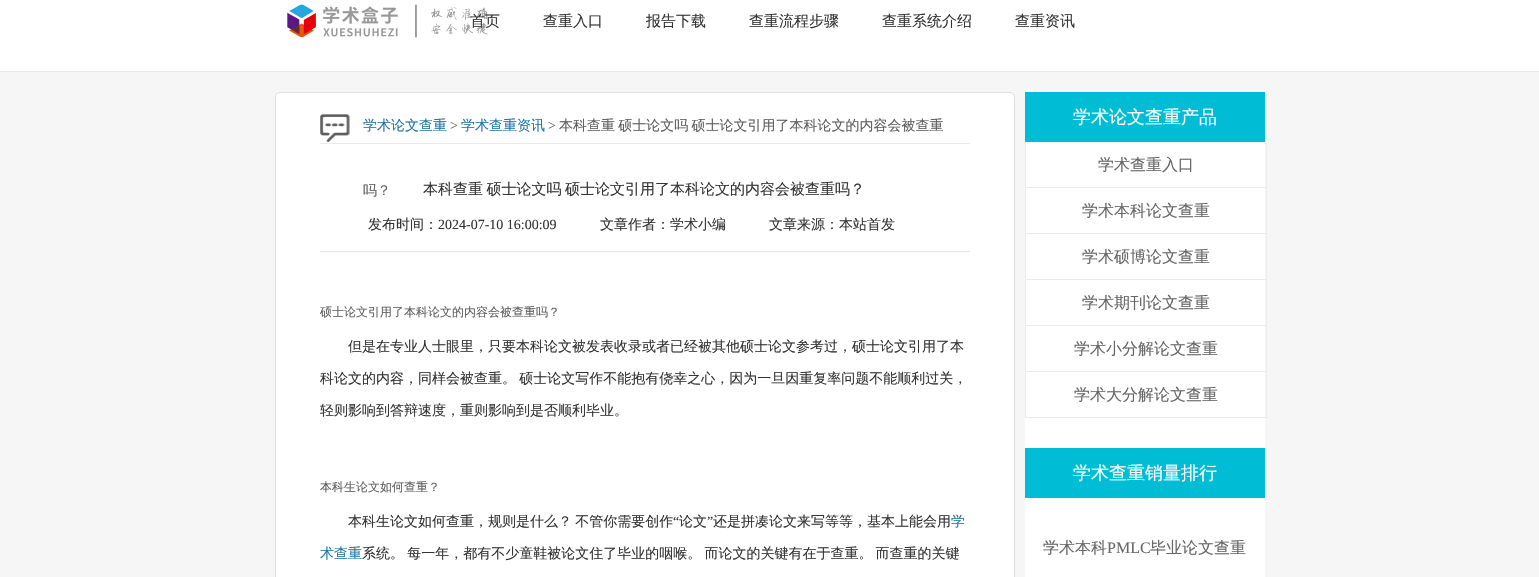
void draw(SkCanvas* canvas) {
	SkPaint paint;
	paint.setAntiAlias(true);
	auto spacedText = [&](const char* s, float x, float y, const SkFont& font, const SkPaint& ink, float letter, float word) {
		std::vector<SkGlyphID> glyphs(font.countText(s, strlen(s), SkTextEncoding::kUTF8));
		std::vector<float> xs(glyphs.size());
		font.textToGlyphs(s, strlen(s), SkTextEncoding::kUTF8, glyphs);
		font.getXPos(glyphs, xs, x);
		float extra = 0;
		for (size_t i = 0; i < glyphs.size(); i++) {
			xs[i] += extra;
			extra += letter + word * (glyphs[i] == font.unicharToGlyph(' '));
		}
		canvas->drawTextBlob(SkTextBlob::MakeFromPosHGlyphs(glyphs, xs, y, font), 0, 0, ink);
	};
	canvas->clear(0xfff6f6f6);
	paint.setColor(0xffffffff);
	canvas->drawRect(SkRect::MakeXYWH(0, 0, 1539, 71), paint);
	canvas->drawImageRect(SkImages::DeferredFromEncodedData(SkData::MakeFromFileName("img1.png")), SkRect::MakeXYWH(287, 4, 201, 34), SkSamplingOptions());
	SkFont f1(fontMgr->matchFamilyStyle("WenQuanYi Zen Hei", SkFontStyle(500, SkFontStyle::kNormal_Width, SkFontStyle::kUpright_Slant)), 15);
	f1.setSubpixel(true);
	paint.setColor(0xff333333);
	canvas->drawString("首页", 470, 26, f1, paint);
	canvas->drawString("查重入口", 543, 26, f1, paint);
	canvas->drawString("报告下载", 646, 26, f1, paint);
	canvas->drawString("查重流程步骤", 749, 26, f1, paint);
	canvas->drawString("查重系统介绍", 882, 26, f1, paint);
	canvas->drawString("查重资讯", 1015, 26, f1, paint);
	paint.setColor(0xffebebeb);
	canvas->drawRect(SkRect::MakeXYWH(0, 71, 1539, 1), paint);
	paint.setColor(0xffffffff);
	canvas->drawRoundRect(SkRect::MakeXYWH(275.5, 92.5, 739, 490), 4.5, 4.5, paint);
	paint.setStroke(true);
	paint.setStrokeWidth(1);
	paint.setColor(0xffdddddd);
	canvas->drawRoundRect(SkRect::MakeXYWH(275.5, 92.5, 739, 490), 4.5, 4.5, paint);
	canvas->drawImageRect(SkImages::DeferredFromEncodedData(SkData::MakeFromFileName("img2.png")), SkRect::MakeXYWH(320, 114, 30, 28), SkSamplingOptions());
	paint.setStroke(false);
	paint.setColor(0xffebebeb);
	canvas->drawRect(SkRect::MakeXYWH(320, 143, 650, 1), paint);
	SkFont f2(fontMgr->matchFamilyStyle("WenQuanYi Zen Hei", SkFontStyle(500, SkFontStyle::kNormal_Width, SkFontStyle::kUpright_Slant)), 14);
	f2.setSubpixel(true);
	paint.setColor(0xff2175a1);
	canvas->drawString("学术论文查重", 363, 130, f2, paint);
	SkFont f3(fontMgr->matchFamilyStyle("Liberation Serif", SkFontStyle::Normal()), 14);
	f3.setSubpixel(true);
	paint.setColor(0xff5e5e5e);
	canvas->drawString(">", 450, 130, f3, paint);
	paint.setColor(0xff2175a1);
	canvas->drawString("学术查重资讯", 461, 130, f2, paint);
	paint.setColor(0xff5e5e5e);
	canvas->drawString(">", 548, 130, f3, paint);
	spacedText("本科查重 硕士论文吗 硕士论文引用了本科论文的内容会被查重", 559, 130, f2, paint, 0, -1);
	canvas->drawString("吗？", 363, 195, f2, paint);
	paint.setColor(0xff333333);
	spacedText("本科查重 硕士论文吗 硕士论文引用了本科论文的内容会被查重吗？", 423, 194, f1, paint, 0, -1);
	canvas->drawString("发布时间：", 368, 229, f2, paint);
	canvas->drawString("2024-07-10 16:00:09", 438, 229, f3, paint);
	canvas->drawString("文章作者：学术小编", 600, 229, f2, paint);
	canvas->drawString("文章来源：本站首发", 769, 229, f2, paint);
	paint.setColor(0xffe2e2e2);
	canvas->drawRect(SkRect::MakeXYWH(320, 251, 650, 1), paint);
	SkFont f4(fontMgr->matchFamilyStyle("WenQuanYi Zen Hei", SkFontStyle(500, SkFontStyle::kNormal_Width, SkFontStyle::kUpright_Slant)), 12);
	f4.setSubpixel(true);
	paint.setColor(0xff5e5e5e);
	canvas->drawString("硕士论文引用了本科论文的内容会被查重吗？", 320, 316, f4, paint);
	paint.setColor(0xff333333);
	canvas->drawString("但是在专业人士眼里，只要本科论文被发表收录或者已经被其他硕士论文参考过，硕士论文引用了本", 348, 351, f2, paint);
	spacedText("科论文的内容，同样会被查重。 硕士论文写作不能抱有侥幸之心，因为一旦因重复率问题不能顺利过关，", 320, 383, f2, paint, 0, -1);
	canvas->drawString("轻则影响到答辩速度，重则影响到是否顺利毕业。", 320, 415, f2, paint);
	paint.setColor(0xff5e5e5e);
	canvas->drawString("本科生论文如何查重？", 320, 491, f4, paint);
	paint.setColor(0xff333333);
	spacedText("本科生论文如何查重，规则是什么？ 不管你需要创作", 348, 526, f2, paint, 0, -1);
	canvas->drawString("“", 673, 526, f3, paint);
	canvas->drawString("论文", 679, 526, f2, paint);
	canvas->drawString("”", 707, 526, f3, paint);
	canvas->drawString("还是拼凑论文来写等等，基本上能会用", 713, 526, f2, paint);
	paint.setColor(0xff2175a1);
	canvas->drawString("学", 951, 526, f2, paint);
	canvas->drawString("术查重", 320, 558, f2, paint);
	paint.setColor(0xff333333);
	spacedText("系统。 每一年，都有不少童鞋被论文住了毕业的咽喉。 而论文的关键有在于查重。 而查重的关键", 362, 558, f2, paint, 0, -1);
	paint.setColor(0xffffffff);
	canvas->drawRect(SkRect::MakeXYWH(1025, 142, 240, 435), paint);
	paint.setColor(0xff00bcd4);
	canvas->drawRect(SkRect::MakeXYWH(1025, 92, 240, 50), paint);
	SkFont f5(fontMgr->matchFamilyStyle("WenQuanYi Zen Hei", SkFontStyle(500, SkFontStyle::kNormal_Width, SkFontStyle::kUpright_Slant)), 18);
	f5.setSubpixel(true);
	paint.setColor(0xffffffff);
	canvas->drawString("学术论文查重产品", 1073, 123, f5, paint);
	paint.setColor(0xffebebeb);
	canvas->drawRect(SkRect::MakeXYWH(1266, 142, 1, 276), paint);
	canvas->drawRect(SkRect::MakeXYWH(1025, 187, 242, 1), paint);
	canvas->drawRect(SkRect::MakeXYWH(1025, 142, 1, 46), paint);
	SkFont f6(fontMgr->matchFamilyStyle("WenQuanYi Zen Hei", SkFontStyle(500, SkFontStyle::kNormal_Width, SkFontStyle::kUpright_Slant)), 16);
	f6.setSubpixel(true);
	paint.setColor(0xff666666);
	canvas->drawString("学术查重入口", 1098, 170, f6, paint);
	paint.setColor(0xffebebeb);
	canvas->drawRect(SkRect::MakeXYWH(1025, 233, 242, 1), paint);
	canvas->drawRect(SkRect::MakeXYWH(1025, 188, 1, 46), paint);
	paint.setColor(0xff666666);
	canvas->drawString("学术本科论文查重", 1082, 216, f6, paint);
	paint.setColor(0xffebebeb);
	canvas->drawRect(SkRect::MakeXYWH(1025, 279, 242, 1), paint);
	canvas->drawRect(SkRect::MakeXYWH(1025, 234, 1, 46), paint);
	paint.setColor(0xff666666);
	canvas->drawString("学术硕博论文查重", 1082, 262, f6, paint);
	paint.setColor(0xffebebeb);
	canvas->drawRect(SkRect::MakeXYWH(1025, 325, 242, 1), paint);
	canvas->drawRect(SkRect::MakeXYWH(1025, 280, 1, 46), paint);
	paint.setColor(0xff666666);
	canvas->drawString("学术期刊论文查重", 1082, 308, f6, paint);
	paint.setColor(0xffebebeb);
	canvas->drawRect(SkRect::MakeXYWH(1025, 371, 242, 1), paint);
	canvas->drawRect(SkRect::MakeXYWH(1025, 326, 1, 46), paint);
	paint.setColor(0xff666666);
	canvas->drawString("学术小分解论文查重", 1074, 354, f6, paint);
	paint.setColor(0xffebebeb);
	canvas->drawRect(SkRect::MakeXYWH(1025, 417, 242, 1), paint);
	canvas->drawRect(SkRect::MakeXYWH(1025, 372, 1, 46), paint);
	paint.setColor(0xff666666);
	canvas->drawString("学术大分解论文查重", 1074, 400, f6, paint);
	paint.setColor(0xff00bcd4);
	canvas->drawRect(SkRect::MakeXYWH(1025, 448, 240, 50), paint);
	paint.setColor(0xffffffff);
	canvas->drawString("学术查重销量排行", 1073, 479, f5, paint);
	paint.setColor(0xff666666);
	canvas->drawString("学术本科", 1043, 553, f6, paint);
	SkFont f7(fontMgr->matchFamilyStyle("Liberation Serif", SkFontStyle::Normal()), 16);
	f7.setSubpixel(true);
	canvas->drawString("PMLC", 1107, 553, f7, paint);
	canvas->drawString("毕业论文查重", 1150, 553, f6, paint);
}
